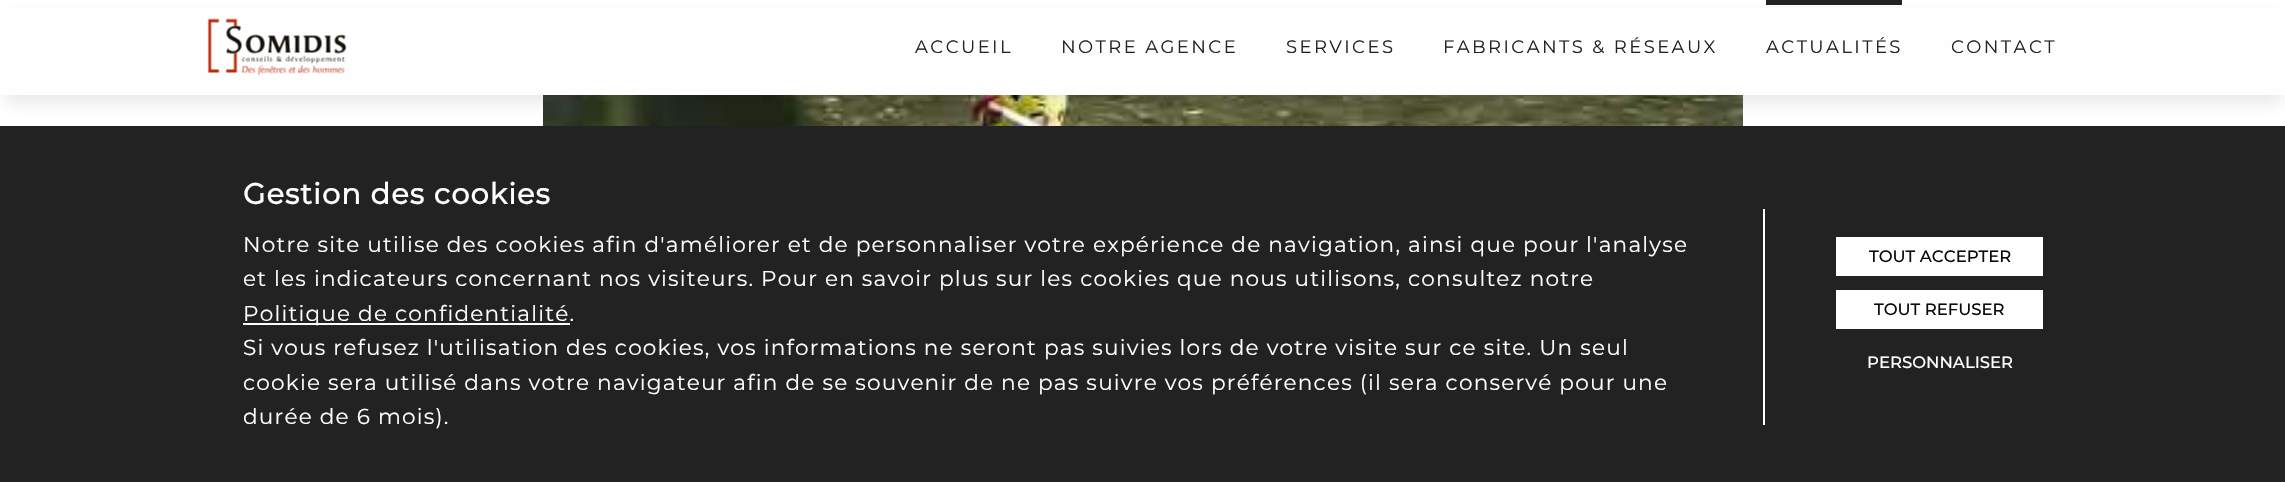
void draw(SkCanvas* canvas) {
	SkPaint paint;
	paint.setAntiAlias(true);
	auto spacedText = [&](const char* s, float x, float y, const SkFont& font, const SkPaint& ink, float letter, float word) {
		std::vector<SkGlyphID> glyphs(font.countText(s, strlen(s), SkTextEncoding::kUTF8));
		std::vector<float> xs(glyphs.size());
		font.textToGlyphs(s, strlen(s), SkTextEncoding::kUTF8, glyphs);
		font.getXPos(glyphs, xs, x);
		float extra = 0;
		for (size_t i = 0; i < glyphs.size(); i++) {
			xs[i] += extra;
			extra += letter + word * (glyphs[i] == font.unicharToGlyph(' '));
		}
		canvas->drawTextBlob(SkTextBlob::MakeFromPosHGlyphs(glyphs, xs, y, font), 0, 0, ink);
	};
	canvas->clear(0xffffffff);
	canvas->drawImageRect(SkImages::DeferredFromEncodedData(SkData::MakeFromFileName("img2.png")), SkRect::MakeXYWH(543, 95, 1200, 31), SkSamplingOptions());
	paint.setColor(0xff222222);
	canvas->drawRect(SkRect::MakeXYWH(0, 126, 2285, 356), paint);
	paint.setColor(0x1a0a0a0a);
	paint.setMaskFilter(SkMaskFilter::MakeBlur(kNormal_SkBlurStyle, 8.5));
	canvas->drawRect(SkRect::MakeXYWH(5, 17, 2277, 85), paint);
	paint.setMaskFilter(nullptr);
	paint.setColor(0xfffefefe);
	canvas->drawRect(SkRect::MakeXYWH(0, 8, 2285, 87), paint);
	canvas->drawImageRect(SkImages::DeferredFromEncodedData(SkData::MakeFromFileName("img1.png")), SkRect::MakeXYWH(207, 18, 140, 58), SkSamplingOptions());
	SkFont f1(fontMgr->matchFamilyStyle("Montserrat", SkFontStyle::Normal()), 18);
	f1.setSubpixel(true);
	paint.setColor(0xff222222);
	spacedText("ACCUEIL", 915, 53, f1, paint, 2.4, 0);
	spacedText("NOTRE AGENCE", 1061, 53, f1, paint, 2.4, 0);
	spacedText("SERVICES", 1286, 53, f1, paint, 2.4, 0);
	spacedText("FABRICANTS & RÉSEAUX", 1443, 53, f1, paint, 2.4, 0);
	canvas->drawRect(SkRect::MakeXYWH(1766, 0, 136, 5), paint);
	spacedText("ACTUALITÉS", 1766, 53, f1, paint, 2.4, 0);
	spacedText("CONTACT", 1951, 53, f1, paint, 2.4, 0);
	SkFont f2(fontMgr->matchFamilyStyle("Montserrat", SkFontStyle::Bold()), 28.75);
	f2.setSubpixel(true);
	paint.setColor(0xffffffff);
	spacedText("Gestion des cookies", 243, 204, f2, paint, 1.2, 0);
	SkFont f3(fontMgr->matchFamilyStyle("Montserrat", SkFontStyle::Normal()), 21.6);
	f3.setSubpixel(true);
	spacedText("Notre site utilise des cookies afin d'améliorer et de personnaliser votre expérience de navigation, ainsi que pour l'analyse", 243, 252, f3, paint, 1.2, 0);
	spacedText("et les indicateurs concernant nos visiteurs. Pour en savoir plus sur les cookies que nous utilisons, consultez notre", 243, 286, f3, paint, 1.2, 0);
	canvas->drawRect(SkRect::MakeXYWH(243, 323, 327, 2), paint);
	spacedText("Politique de confidentialité.", 243, 321, f3, paint, 1.2, 0);
	spacedText("Si vous refusez l'utilisation des cookies, vos informations ne seront pas suivies lors de votre visite sur ce site. Un seul", 243, 355, f3, paint, 1.2, 0);
	spacedText("cookie sera utilisé dans votre navigateur afin de se souvenir de ne pas suivre vos préférences (il sera conservé pour une", 243, 390, f3, paint, 1.2, 0);
	spacedText("durée de 6 mois).", 243, 424, f3, paint, 1.2, 0);
	canvas->drawRect(SkRect::MakeXYWH(1763, 209, 2, 216), paint);
	canvas->drawRect(SkRect::MakeXYWH(1836, 237, 207, 39), paint);
	SkFont f4(fontMgr->matchFamilyStyle("Montserrat", SkFontStyle(500, SkFontStyle::kNormal_Width, SkFontStyle::kUpright_Slant)), 16.5);
	f4.setSubpixel(true);
	paint.setColor(0xff0a0a0a);
	canvas->drawString("TOUT ACCEPTER", 1869, 262, f4, paint);
	paint.setColor(0xffffffff);
	canvas->drawRect(SkRect::MakeXYWH(1836, 290, 207, 39), paint);
	paint.setColor(0xff0a0a0a);
	canvas->drawString("TOUT REFUSER", 1874, 315, f4, paint);
	paint.setColor(0xffffffff);
	canvas->drawString("PERSONNALISER", 1867, 368, f4, paint);
}
